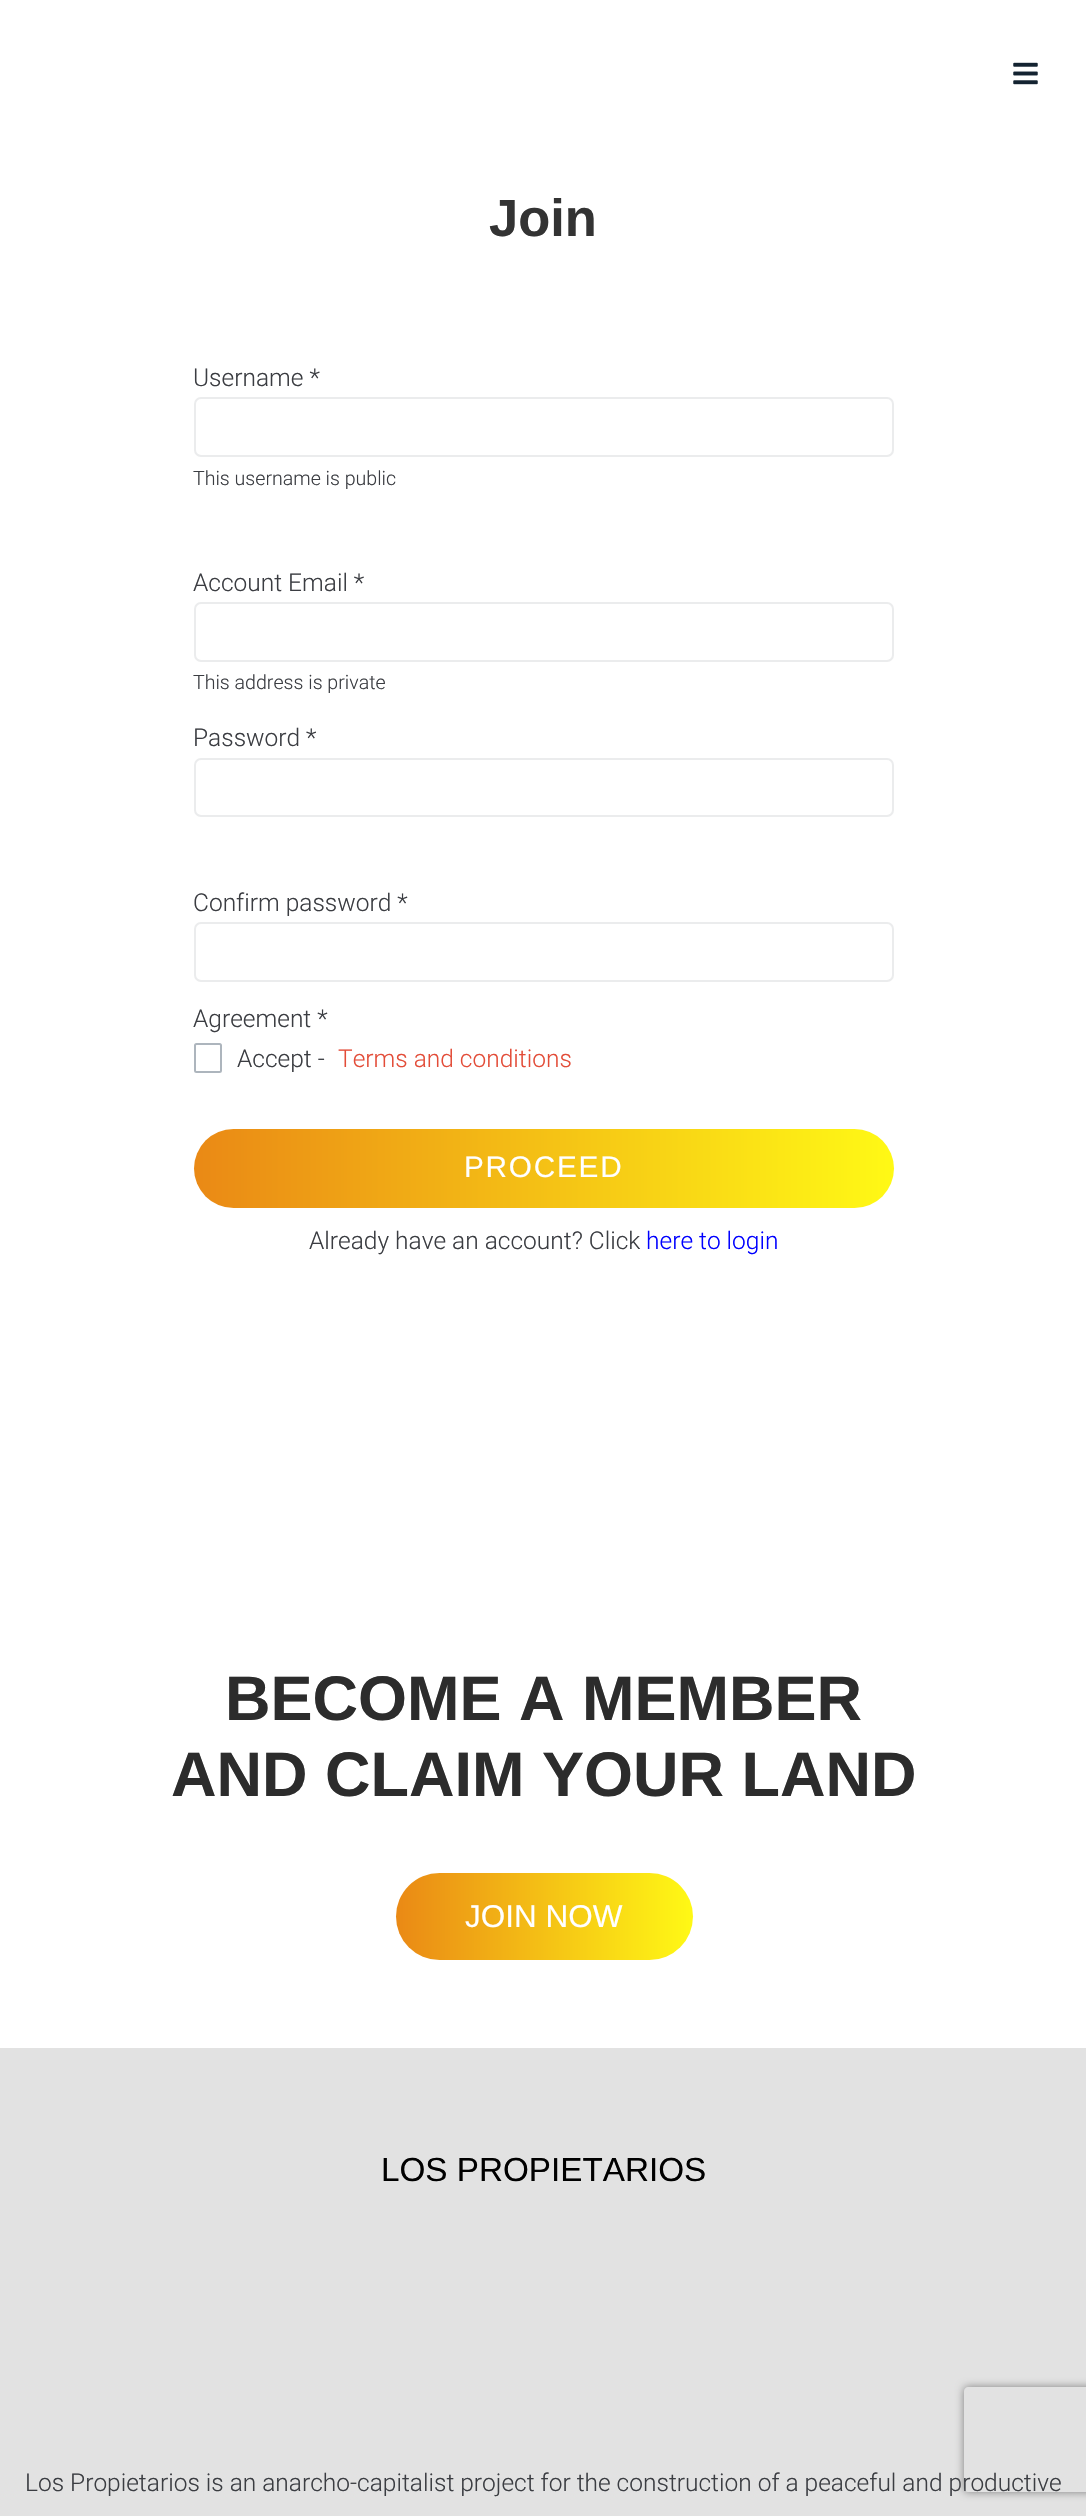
void draw(SkCanvas* canvas) {
	SkPaint paint;
	paint.setAntiAlias(true);
	auto spacedText = [&](const char* s, float x, float y, const SkFont& font, const SkPaint& ink, float letter, float word) {
		std::vector<SkGlyphID> glyphs(font.countText(s, strlen(s), SkTextEncoding::kUTF8));
		std::vector<float> xs(glyphs.size());
		font.textToGlyphs(s, strlen(s), SkTextEncoding::kUTF8, glyphs);
		font.getXPos(glyphs, xs, x);
		float extra = 0;
		for (size_t i = 0; i < glyphs.size(); i++) {
			xs[i] += extra;
			extra += letter + word * (glyphs[i] == font.unicharToGlyph(' '));
		}
		canvas->drawTextBlob(SkTextBlob::MakeFromPosHGlyphs(glyphs, xs, y, font), 0, 0, ink);
	};
	auto svgPath = [&](const char* data, bool evenOdd = false) {
		SkPath result = *SkParsePath::FromSVGString(data);
		if (evenOdd) result.setFillType(SkPathFillType::kEvenOdd);
		return result;
	};
	canvas->clear(0xffffffff);
	canvas->drawImageRect(SkImages::DeferredFromEncodedData(SkData::MakeFromFileName("img1.png")), SkRect::MakeXYWH(1013, 62, 25, 23), SkSamplingOptions());
	SkFont f1(fontMgr->matchFamilyStyle("Liberation Sans", SkFontStyle::Bold()), 52.5);
	f1.setSubpixel(true);
	paint.setColor(0xff333333);
	canvas->drawString("Join", 489, 236, f1, paint);
	SkFont f2(fontMgr->matchFamilyStyle("Roboto", SkFontStyle(300, SkFontStyle::kNormal_Width, SkFontStyle::kUpright_Slant)), 24.5);
	f2.setSubpixel(true);
	paint.setColor(0xff3b3d42);
	canvas->drawString("Username *", 193, 386, f2, paint);
	paint.setStroke(true);
	paint.setStrokeWidth(2);
	paint.setColor(0xffebeced);
	canvas->drawRoundRect(SkRect::MakeXYWH(195, 398, 698, 58), 6, 6, paint);
	SkFont f3(fontMgr->matchFamilyStyle("Roboto", SkFontStyle(300, SkFontStyle::kNormal_Width, SkFontStyle::kUpright_Slant)), 19.6);
	f3.setSubpixel(true);
	paint.setStroke(false);
	paint.setColor(0xff3b3d42);
	canvas->drawString("This username is public", 193, 485, f3, paint);
	canvas->drawString("Account Email *", 193, 591, f2, paint);
	paint.setStroke(true);
	paint.setColor(0xffebeced);
	canvas->drawRoundRect(SkRect::MakeXYWH(195, 603, 698, 58), 6, 6, paint);
	paint.setStroke(false);
	paint.setColor(0xff3b3d42);
	canvas->drawString("This address is private", 193, 689, f3, paint);
	canvas->drawString("Password *", 193, 746, f2, paint);
	paint.setStroke(true);
	paint.setColor(0xffebeced);
	canvas->drawRoundRect(SkRect::MakeXYWH(195, 759, 698, 57), 6, 6, paint);
	paint.setStroke(false);
	paint.setColor(0xff3b3d42);
	canvas->drawString("Confirm password *", 193, 911, f2, paint);
	paint.setStroke(true);
	paint.setColor(0xffebeced);
	canvas->drawRoundRect(SkRect::MakeXYWH(195, 923, 698, 58), 6, 6, paint);
	paint.setStroke(false);
	paint.setColor(0xff3b3d42);
	canvas->drawString("Agreement *", 193, 1027, f2, paint);
	paint.setStroke(true);
	paint.setColor(0xffadb5bd);
	canvas->drawRoundRect(SkRect::MakeXYWH(195, 1044, 26, 28), 1.5, 1.5, paint);
	paint.setStroke(false);
	paint.setColor(0xff3b3d42);
	canvas->drawString("Accept -", 237, 1067, f2, paint);
	paint.setColor(0xffe34c38);
	canvas->drawString("Terms and conditions", 338, 1067, f2, paint);
	{
		const SkColor colors[] = {0xffea8915, 0xfffff915};
		const float stops[] = {0, 1};
		const SkPoint ends[] = {{194, 1168}, {894, 1168}};
		paint.setShader(SkGradientShader::MakeLinear(ends, colors, stops, 2, SkTileMode::kClamp));
		paint.setAlpha(255);
	}
	canvas->drawRoundRect(SkRect::MakeXYWH(194, 1129, 700, 79), 39.5, 39.5, paint);
	SkFont f4(fontMgr->matchFamilyStyle("Liberation Sans", SkFontStyle::Normal()), 29.75);
	f4.setSubpixel(true);
	paint.setShader(nullptr);
	paint.setColor(0xffffffff);
	spacedText("PROCEED", 464, 1177, f4, paint, 1.75, 0);
	paint.setColor(0xff3b3d42);
	canvas->drawString("Already have an account? Click", 309, 1249, f2, paint);
	paint.setColor(0xff0000ff);
	canvas->drawString("here to login", 646, 1249, f2, paint);
	SkFont f5(fontMgr->matchFamilyStyle("Liberation Sans", SkFontStyle::Bold()), 63);
	f5.setSubpixel(true);
	paint.setColor(0xff2c2c2c);
	canvas->drawString("BECOME A MEMBER", 225, 1720, f5, paint);
	canvas->drawString("AND CLAIM YOUR LAND", 171, 1796, f5, paint);
	{
		const SkColor colors[] = {0xffea8915, 0xfffff915};
		const float stops[] = {0, 1};
		const SkPoint ends[] = {{396, 1916}, {693, 1916}};
		paint.setShader(SkGradientShader::MakeLinear(ends, colors, stops, 2, SkTileMode::kClamp));
		paint.setAlpha(255);
	}
	canvas->drawRoundRect(SkRect::MakeXYWH(396, 1873, 297, 87), 43.5, 43.5, paint);
	SkFont f6(fontMgr->matchFamilyStyle("Liberation Sans", SkFontStyle::Normal()), 31.5);
	f6.setSubpixel(true);
	paint.setShader(nullptr);
	paint.setColor(0xffffffff);
	canvas->drawString("JOIN NOW", 465, 1927, f6, paint);
	paint.setColor(0xffe2e2e2);
	canvas->drawRect(SkRect::MakeXYWH(0, 2048, 1086, 468), paint);
	SkFont f7(fontMgr->matchFamilyStyle("Liberation Sans", SkFontStyle::Normal()), 33.25);
	f7.setSubpixel(true);
	paint.setColor(0xff000000);
	canvas->drawString("LOS PROPIETARIOS", 381, 2181, f7, paint);
	paint.setColor(0xff3b3d42);
	canvas->drawString("Los Propietarios is an anarcho-capitalist project for the construction of a peaceful and productive", 25, 2491, f2, paint);
	canvas->save();
	canvas->clipPath(svgPath("M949 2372H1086V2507H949ZM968 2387H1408C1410 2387 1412 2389 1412 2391V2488C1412 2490 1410 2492 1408 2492H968C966 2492 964 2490 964 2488V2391C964 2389 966 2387 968 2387Z", true), true);
	paint.setColor(0xff808080);
	paint.setMaskFilter(SkMaskFilter::MakeBlur(kNormal_SkBlurStyle, 4.5));
	canvas->drawRoundRect(SkRect::MakeXYWH(964, 2387, 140, 105), 4, 4, paint);
	paint.setMaskFilter(nullptr);
	canvas->restore();
}
